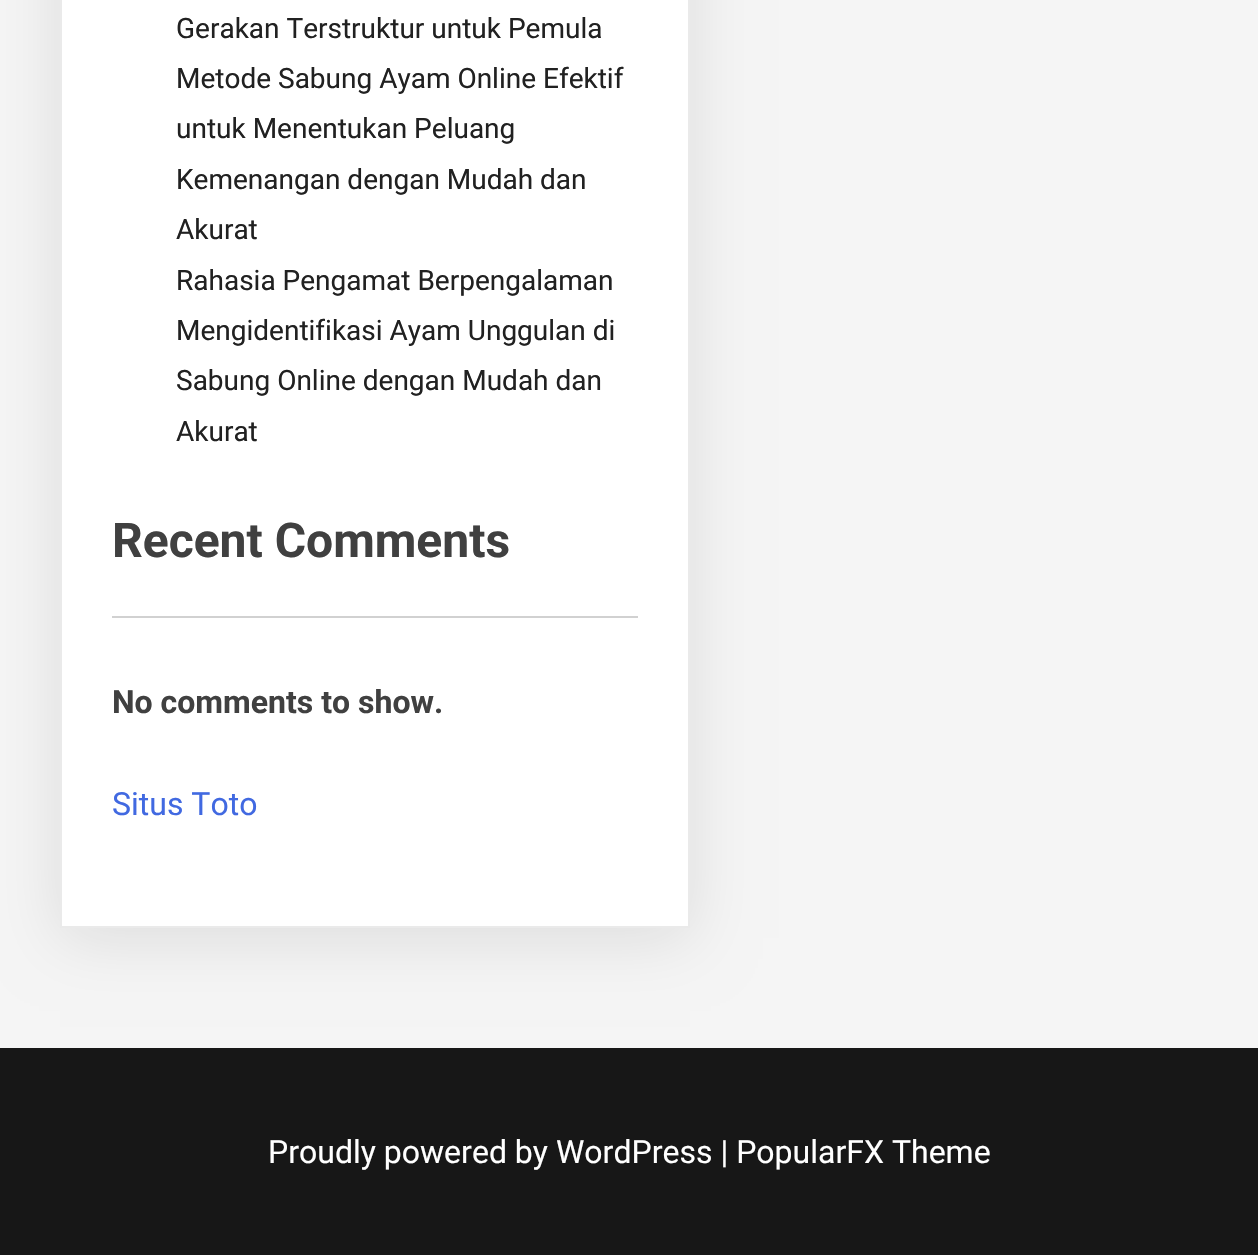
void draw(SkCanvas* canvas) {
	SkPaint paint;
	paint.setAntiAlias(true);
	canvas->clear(0xfff5f5f5);
	paint.setColor(0x1a000000);
	paint.setMaskFilter(SkMaskFilter::MakeBlur(kNormal_SkBlurStyle, 30));
	canvas->drawRect(SkRect::MakeXYWH(60, -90, 630, 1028), paint);
	paint.setMaskFilter(nullptr);
	paint.setColor(0xffffffff);
	canvas->drawRect(SkRect::MakeXYWH(61, -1, 628, 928), paint);
	paint.setStroke(true);
	paint.setStrokeWidth(2);
	paint.setColor(0xffeaeaea);
	canvas->drawRect(SkRect::MakeXYWH(61, -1, 628, 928), paint);
	SkFont f1(fontMgr->matchFamilyStyle("Roboto", SkFontStyle::Normal()), 28);
	f1.setSubpixel(true);
	paint.setStroke(false);
	paint.setColor(0xff212121);
	canvas->drawString("Gerakan Terstruktur untuk Pemula", 176, 38, f1, paint);
	canvas->drawString("Metode Sabung Ayam Online Efektif", 176, 88, f1, paint);
	canvas->drawString("untuk Menentukan Peluang", 176, 138, f1, paint);
	canvas->drawString("Kemenangan dengan Mudah dan", 176, 189, f1, paint);
	canvas->drawString("Akurat", 176, 239, f1, paint);
	canvas->drawString("Rahasia Pengamat Berpengalaman", 176, 290, f1, paint);
	canvas->drawString("Mengidentifikasi Ayam Unggulan di", 176, 340, f1, paint);
	canvas->drawString("Sabung Online dengan Mudah dan", 176, 390, f1, paint);
	canvas->drawString("Akurat", 176, 441, f1, paint);
	SkFont f2(fontMgr->matchFamilyStyle("Roboto", SkFontStyle::Bold()), 48);
	f2.setSubpixel(true);
	paint.setColor(0xff404040);
	canvas->drawString("Recent Comments", 112, 557, f2, paint);
	paint.setColor(0xffd1d1d1);
	canvas->drawRect(SkRect::MakeXYWH(112, 616, 526, 2), paint);
	SkFont f3(fontMgr->matchFamilyStyle("Roboto", SkFontStyle::Bold()), 32);
	f3.setSubpixel(true);
	paint.setColor(0xff404040);
	canvas->drawString("No comments to show.", 112, 713, f3, paint);
	SkFont f4(fontMgr->matchFamilyStyle("Roboto", SkFontStyle::Normal()), 32);
	f4.setSubpixel(true);
	paint.setColor(0xff4169e1);
	canvas->drawString("Situs Toto", 112, 815, f4, paint);
	paint.setColor(0xff171717);
	canvas->drawRect(SkRect::MakeXYWH(0, 1048, 1258, 207), paint);
	paint.setColor(0xffffffff);
	canvas->drawString("Proudly powered by WordPress | PopularFX Theme", 268, 1163, f4, paint);
}
